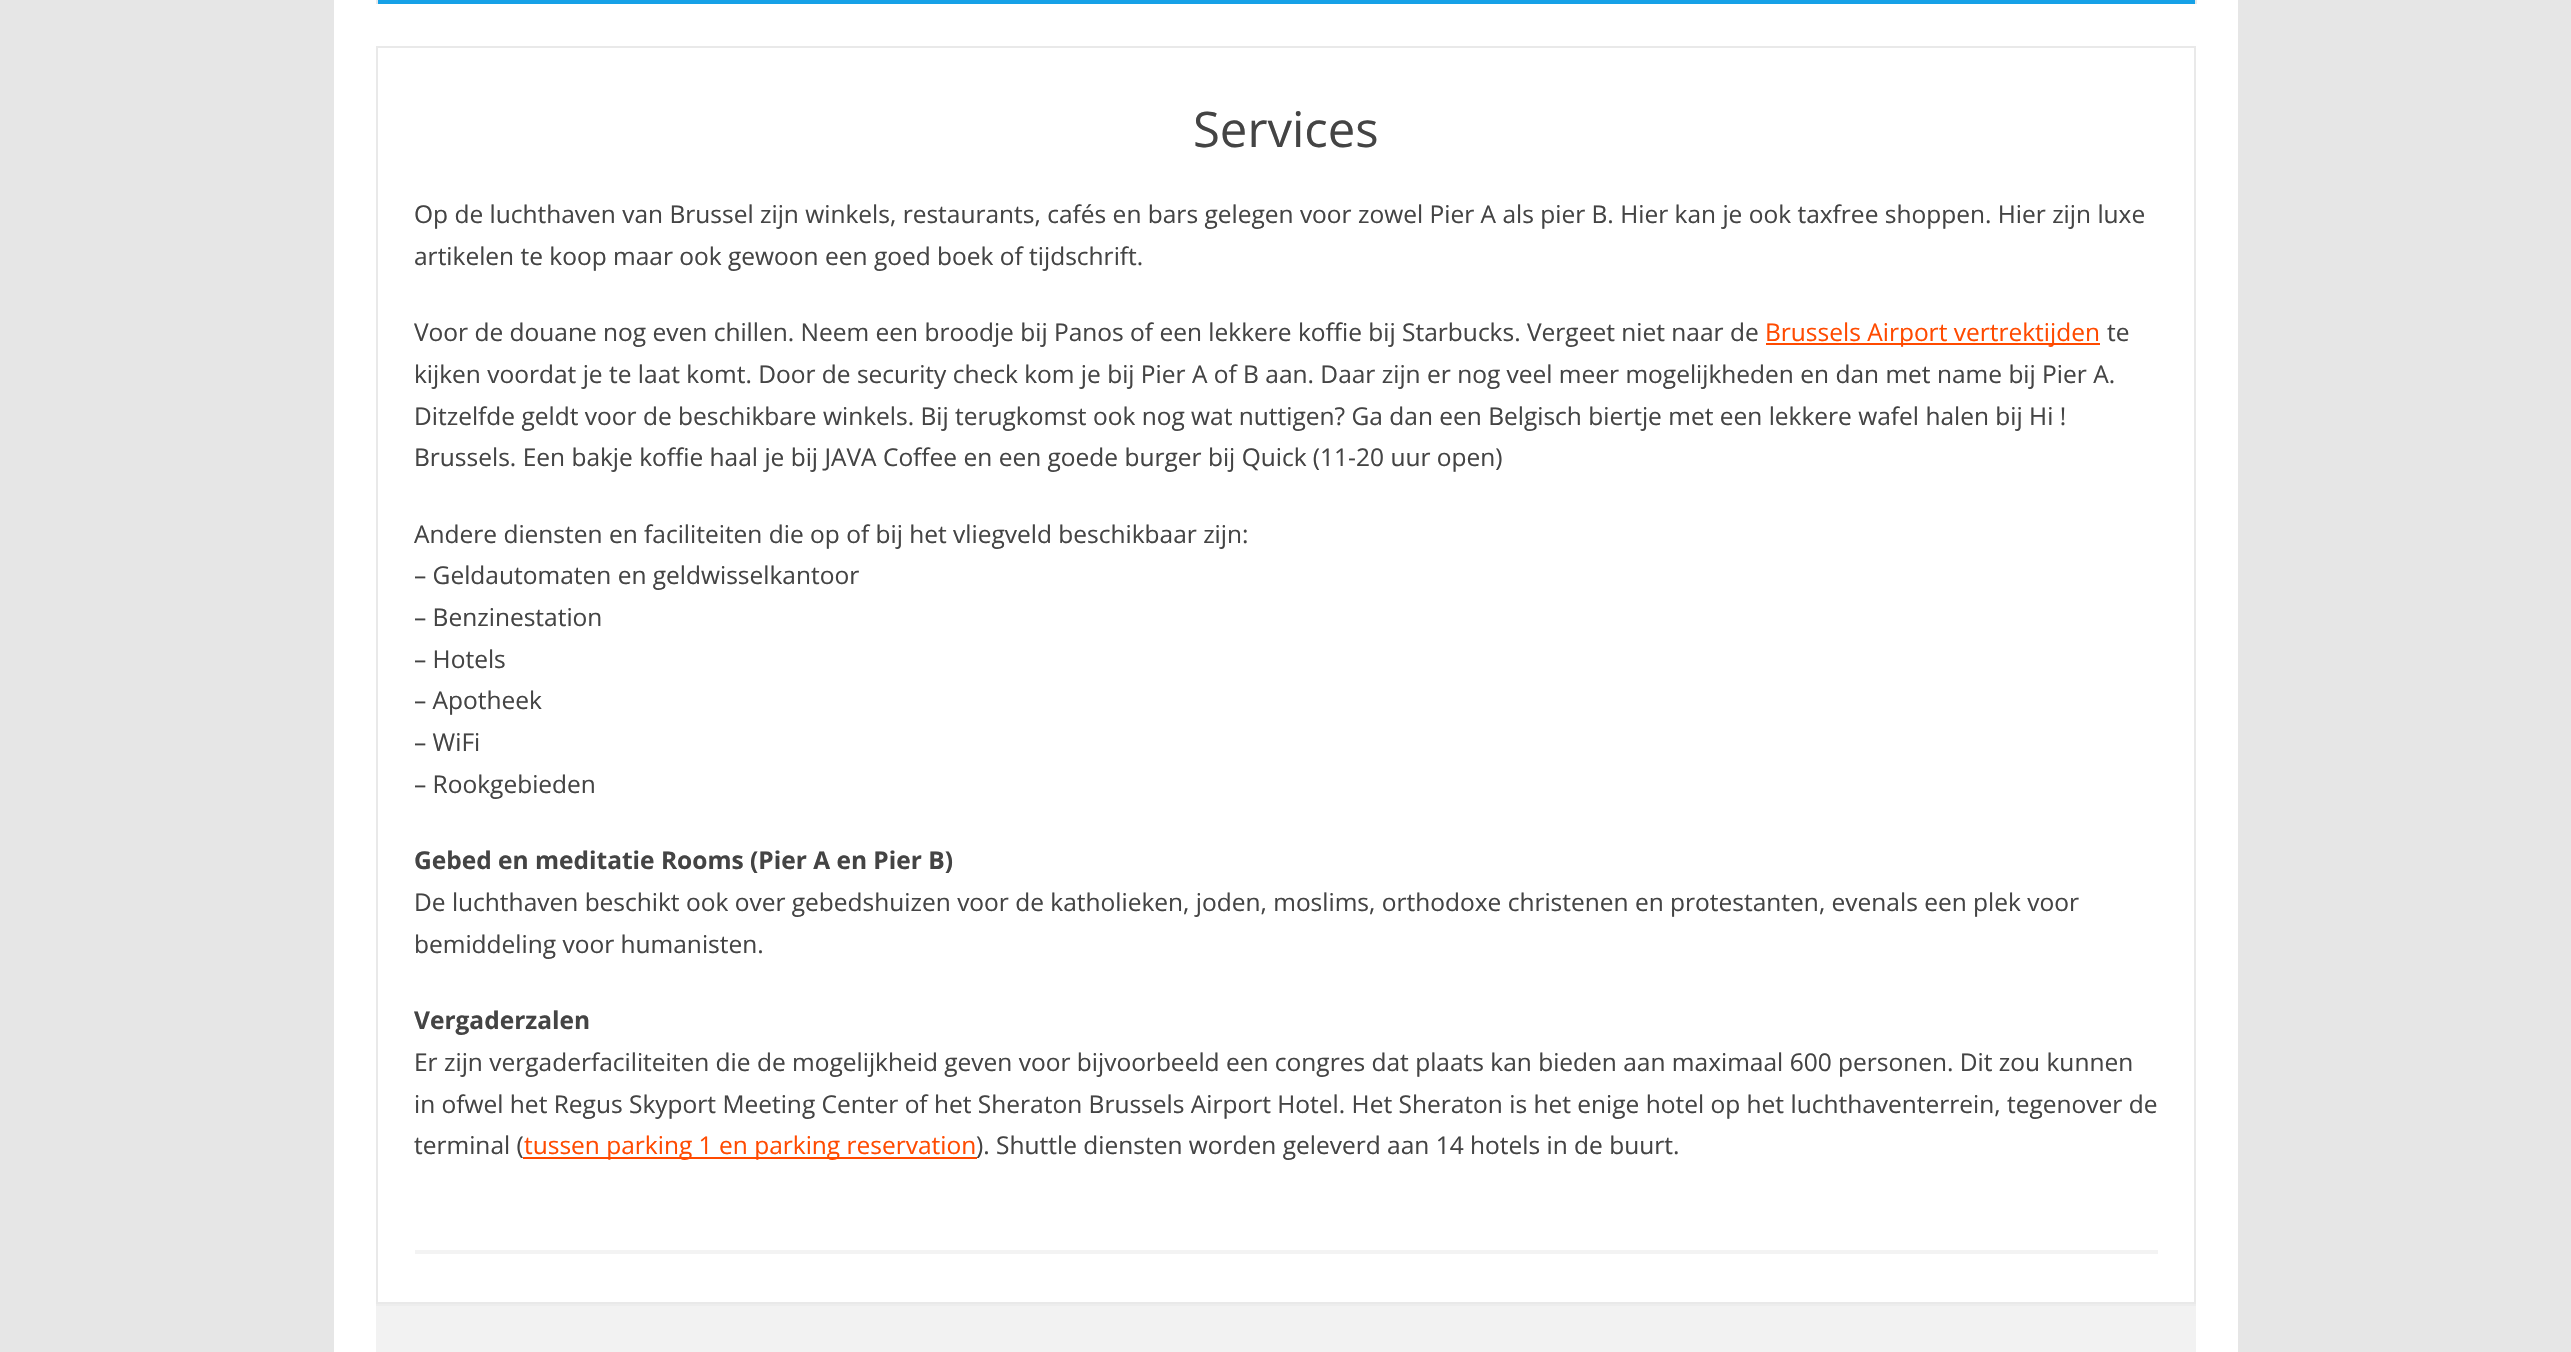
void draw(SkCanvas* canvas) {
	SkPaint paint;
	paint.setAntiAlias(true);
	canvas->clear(0xffe6e6e6);
	paint.setColor(0xffffffff);
	canvas->drawRect(SkRect::MakeXYWH(334, 0, 1904, 1352), paint);
	paint.setColor(0xffe9e9e9);
	canvas->drawRect(SkRect::MakeXYWH(2195, 0, 2, 4), paint);
	canvas->drawRect(SkRect::MakeXYWH(376, 0, 2, 4), paint);
	paint.setColor(0xff16a1e7);
	canvas->drawRect(SkRect::MakeXYWH(378, 0, 1817, 4), paint);
	paint.setStroke(true);
	paint.setStrokeWidth(2);
	paint.setColor(0xffe9e9e9);
	canvas->drawRect(SkRect::MakeXYWH(377, 47, 1818, 1256), paint);
	paint.setStroke(false);
	paint.setColor(0xfff3f3f3);
	canvas->drawRect(SkRect::MakeXYWH(415, 1250, 1743, 4), paint);
	SkFont f1(fontMgr->matchFamilyStyle("Open Sans", SkFontStyle::Normal()), 49);
	f1.setSubpixel(true);
	paint.setColor(0xff444444);
	canvas->drawString("Services", 1193, 147, f1, paint);
	SkFont f2(fontMgr->matchFamilyStyle("Open Sans", SkFontStyle::Normal()), 24.5);
	f2.setSubpixel(true);
	canvas->drawString("Op de luchthaven van Brussel zijn winkels, restaurants, cafés en bars gelegen voor zowel Pier A als pier B. Hier kan je ook taxfree shoppen. Hier zijn luxe", 414, 223, f2, paint);
	canvas->drawString("artikelen te koop maar ook gewoon een goed boek of tijdschrift.", 414, 265, f2, paint);
	canvas->drawString("Voor de douane nog even chillen. Neem een broodje bij Panos of een lekkere koffie bij Starbucks. Vergeet niet naar de", 414, 341, f2, paint);
	paint.setColor(0xffff4a00);
	canvas->drawRect(SkRect::MakeXYWH(1766, 343, 334, 2), paint);
	canvas->drawString("Brussels Airport vertrektijden", 1765, 341, f2, paint);
	paint.setColor(0xff444444);
	canvas->drawString("te", 2107, 341, f2, paint);
	canvas->drawString("kijken voordat je te laat komt. Door de security check kom je bij Pier A of B aan. Daar zijn er nog veel meer mogelijkheden en dan met name bij Pier A.", 414, 383, f2, paint);
	canvas->drawString("Ditzelfde geldt voor de beschikbare winkels. Bij terugkomst ook nog wat nuttigen? Ga dan een Belgisch biertje met een lekkere wafel halen bij Hi !", 414, 425, f2, paint);
	canvas->drawString("Brussels. Een bakje koffie haal je bij JAVA Coffee en een goede burger bij Quick (11-20 uur open)", 414, 466, f2, paint);
	canvas->drawString("Andere diensten en faciliteiten die op of bij het vliegveld beschikbaar zijn:", 414, 543, f2, paint);
	canvas->drawString("– Geldautomaten en geldwisselkantoor", 414, 584, f2, paint);
	canvas->drawString("– Benzinestation", 414, 626, f2, paint);
	canvas->drawString("– Hotels", 414, 668, f2, paint);
	canvas->drawString("– Apotheek", 414, 709, f2, paint);
	canvas->drawString("– WiFi", 414, 751, f2, paint);
	canvas->drawString("– Rookgebieden", 414, 793, f2, paint);
	SkFont f3(fontMgr->matchFamilyStyle("Open Sans", SkFontStyle::Bold()), 24.5);
	f3.setSubpixel(true);
	canvas->drawString("Gebed en meditatie Rooms (Pier A en Pier B)", 414, 869, f3, paint);
	canvas->drawString("De luchthaven beschikt ook over gebedshuizen voor de katholieken, joden, moslims, orthodoxe christenen en protestanten, evenals een plek voor", 414, 911, f2, paint);
	canvas->drawString("bemiddeling voor humanisten.", 414, 953, f2, paint);
	canvas->drawString("Vergaderzalen", 414, 1029, f3, paint);
	canvas->drawString("Er zijn vergaderfaciliteiten die de mogelijkheid geven voor bijvoorbeeld een congres dat plaats kan bieden aan maximaal 600 personen. Dit zou kunnen", 414, 1071, f2, paint);
	canvas->drawString("in ofwel het Regus Skyport Meeting Center of het Sheraton Brussels Airport Hotel. Het Sheraton is het enige hotel op het luchthaventerrein, tegenover de", 414, 1113, f2, paint);
	canvas->drawString("terminal (", 414, 1154, f2, paint);
	paint.setColor(0xffff4a00);
	canvas->drawRect(SkRect::MakeXYWH(523, 1157, 454, 2), paint);
	canvas->drawString("tussen parking 1 en parking reservation", 524, 1154, f2, paint);
	paint.setColor(0xff444444);
	canvas->drawString("). Shuttle diensten worden geleverd aan 14 hotels in de buurt.", 976, 1154, f2, paint);
	paint.setColor(0xfff2f2f2);
	canvas->drawRect(SkRect::MakeXYWH(376, 1306, 1820, 46), paint);
	paint.setColor(0xffededed);
	canvas->drawRect(SkRect::MakeXYWH(376, 1304, 1820, 2), paint);
}
